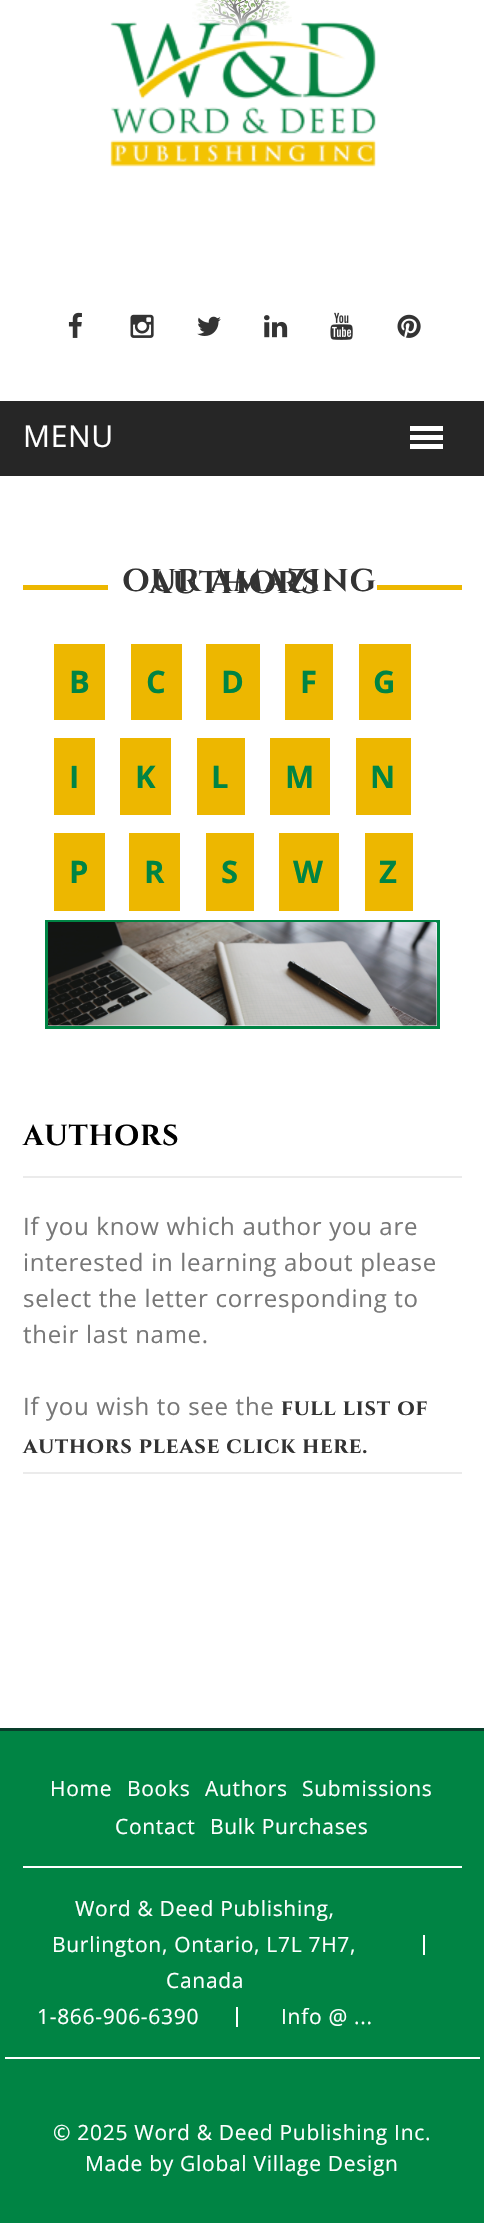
void draw(SkCanvas* canvas) {
	SkPaint paint;
	paint.setAntiAlias(true);
	auto spacedText = [&](const char* s, float x, float y, const SkFont& font, const SkPaint& ink, float letter, float word) {
		std::vector<SkGlyphID> glyphs(font.countText(s, strlen(s), SkTextEncoding::kUTF8));
		std::vector<float> xs(glyphs.size());
		font.textToGlyphs(s, strlen(s), SkTextEncoding::kUTF8, glyphs);
		font.getXPos(glyphs, xs, x);
		float extra = 0;
		for (size_t i = 0; i < glyphs.size(); i++) {
			xs[i] += extra;
			extra += letter + word * (glyphs[i] == font.unicharToGlyph(' '));
		}
		canvas->drawTextBlob(SkTextBlob::MakeFromPosHGlyphs(glyphs, xs, y, font), 0, 0, ink);
	};
	canvas->clear(0xffffffff);
	canvas->drawImageRect(SkImages::DeferredFromEncodedData(SkData::MakeFromFileName("img1.png")), SkRect::MakeXYWH(192, 0, 100, 36), SkSamplingOptions());
	canvas->drawImageRect(SkImages::DeferredFromEncodedData(SkData::MakeFromFileName("img2.png")), SkRect::MakeXYWH(110, 20, 266, 147), SkSamplingOptions());
	canvas->drawImageRect(SkImages::DeferredFromEncodedData(SkData::MakeFromFileName("img3.png")), SkRect::MakeXYWH(68, 312, 14, 26), SkSamplingOptions());
	canvas->drawImageRect(SkImages::DeferredFromEncodedData(SkData::MakeFromFileName("img4.png")), SkRect::MakeXYWH(130, 314, 24, 24), SkSamplingOptions());
	canvas->drawImageRect(SkImages::DeferredFromEncodedData(SkData::MakeFromFileName("img5.png")), SkRect::MakeXYWH(197, 316, 24, 20), SkSamplingOptions());
	canvas->drawImageRect(SkImages::DeferredFromEncodedData(SkData::MakeFromFileName("img6.png")), SkRect::MakeXYWH(264, 315, 24, 23), SkSamplingOptions());
	canvas->drawImageRect(SkImages::DeferredFromEncodedData(SkData::MakeFromFileName("img7.png")), SkRect::MakeXYWH(330, 312, 23, 28), SkSamplingOptions());
	canvas->drawImageRect(SkImages::DeferredFromEncodedData(SkData::MakeFromFileName("img8.png")), SkRect::MakeXYWH(397, 314, 24, 24), SkSamplingOptions());
	paint.setColor(0xff262626);
	canvas->drawRect(SkRect::MakeXYWH(0, 401, 484, 75), paint);
	SkFont f1(fontMgr->matchFamilyStyle("Open Sans", SkFontStyle::Normal()), 30);
	f1.setSubpixel(true);
	paint.setColor(0xffffffff);
	spacedText("MENU", 23, 447, f1, paint, 0.7, 0);
	canvas->drawRect(SkRect::MakeXYWH(410, 426, 33, 5), paint);
	canvas->drawRect(SkRect::MakeXYWH(410, 435, 33, 5), paint);
	canvas->drawRect(SkRect::MakeXYWH(410, 444, 33, 5), paint);
	paint.setColor(0xffedb700);
	canvas->drawRect(SkRect::MakeXYWH(23, 585, 439, 5), paint);
	paint.setColor(0xffffffff);
	canvas->drawRect(SkRect::MakeXYWH(108, 585, 269, 5), paint);
	SkFont f2(fontMgr->matchFamilyStyle("Cinzel", SkFontStyle::Bold()), 31.5);
	f2.setSubpixel(true);
	paint.setColor(0xff333333);
	spacedText("OUR AMAZING", 122, 591, f2, paint, 0.7, 0);
	spacedText("AUTHORS", 149, 593, f2, paint, 0.7, 0);
	paint.setColor(0xffedb700);
	canvas->drawRect(SkRect::MakeXYWH(54, 644, 51, 76), paint);
	SkFont f3(fontMgr->matchFamilyStyle("Open Sans", SkFontStyle::Bold()), 31);
	f3.setSubpixel(true);
	paint.setColor(0xff008444);
	spacedText("B", 69, 693, f3, paint, 0.7, 0);
	paint.setColor(0xffedb700);
	canvas->drawRect(SkRect::MakeXYWH(131, 644, 51, 76), paint);
	paint.setColor(0xff008444);
	spacedText("C", 146, 693, f3, paint, 0.7, 0);
	paint.setColor(0xffedb700);
	canvas->drawRect(SkRect::MakeXYWH(206, 644, 54, 76), paint);
	paint.setColor(0xff008444);
	spacedText("D", 221, 693, f3, paint, 0.7, 0);
	paint.setColor(0xffedb700);
	canvas->drawRect(SkRect::MakeXYWH(285, 644, 48, 76), paint);
	paint.setColor(0xff008444);
	spacedText("F", 300, 693, f3, paint, 0.7, 0);
	paint.setColor(0xffedb700);
	canvas->drawRect(SkRect::MakeXYWH(359, 644, 52, 76), paint);
	paint.setColor(0xff008444);
	spacedText("G", 373, 693, f3, paint, 0.7, 0);
	paint.setColor(0xffedb700);
	canvas->drawRect(SkRect::MakeXYWH(54, 738, 41, 77), paint);
	paint.setColor(0xff008444);
	spacedText("I", 69, 788, f3, paint, 0.7, 0);
	paint.setColor(0xffedb700);
	canvas->drawRect(SkRect::MakeXYWH(120, 738, 51, 77), paint);
	paint.setColor(0xff008444);
	spacedText("K", 135, 788, f3, paint, 0.7, 0);
	paint.setColor(0xffedb700);
	canvas->drawRect(SkRect::MakeXYWH(197, 738, 48, 77), paint);
	paint.setColor(0xff008444);
	spacedText("L", 211, 788, f3, paint, 0.7, 0);
	paint.setColor(0xffedb700);
	canvas->drawRect(SkRect::MakeXYWH(270, 738, 60, 77), paint);
	paint.setColor(0xff008444);
	spacedText("M", 285, 788, f3, paint, 0.7, 0);
	paint.setColor(0xffedb700);
	canvas->drawRect(SkRect::MakeXYWH(356, 738, 55, 77), paint);
	paint.setColor(0xff008444);
	spacedText("N", 370, 788, f3, paint, 0.7, 0);
	paint.setColor(0xffedb700);
	canvas->drawRect(SkRect::MakeXYWH(54, 833, 51, 78), paint);
	paint.setColor(0xff008444);
	spacedText("P", 69, 883, f3, paint, 0.7, 0);
	paint.setColor(0xffedb700);
	canvas->drawRect(SkRect::MakeXYWH(129, 833, 51, 78), paint);
	paint.setColor(0xff008444);
	spacedText("R", 144, 883, f3, paint, 0.7, 0);
	paint.setColor(0xffedb700);
	canvas->drawRect(SkRect::MakeXYWH(206, 833, 48, 78), paint);
	paint.setColor(0xff008444);
	spacedText("S", 221, 883, f3, paint, 0.7, 0);
	paint.setColor(0xffedb700);
	canvas->drawRect(SkRect::MakeXYWH(279, 833, 60, 78), paint);
	paint.setColor(0xff008444);
	spacedText("W", 293, 883, f3, paint, 0.7, 0);
	paint.setColor(0xffedb700);
	canvas->drawRect(SkRect::MakeXYWH(365, 833, 48, 78), paint);
	paint.setColor(0xff008444);
	spacedText("Z", 379, 883, f3, paint, 0.7, 0);
	paint.setStroke(true);
	paint.setStrokeWidth(3);
	canvas->drawRect(SkRect::MakeXYWH(46.5, 921.5, 392, 106), paint);
	canvas->drawImageRect(SkImages::DeferredFromEncodedData(SkData::MakeFromFileName("img9.png")), SkRect::MakeXYWH(48, 922, 389, 104), SkSamplingOptions());
	paint.setStroke(false);
	paint.setColor(0xffebebeb);
	canvas->drawRect(SkRect::MakeXYWH(23, 1176, 439, 2), paint);
	SkFont f4(fontMgr->matchFamilyStyle("Cinzel", SkFontStyle::Bold()), 28.75);
	f4.setSubpixel(true);
	paint.setColor(0xff000000);
	spacedText("AUTHORS", 23, 1145, f4, paint, 0.7, 0);
	paint.setColor(0xffebebeb);
	canvas->drawRect(SkRect::MakeXYWH(23, 1472, 439, 2), paint);
	SkFont f5(fontMgr->matchFamilyStyle("Open Sans", SkFontStyle::Normal()), 24);
	f5.setSubpixel(true);
	paint.setColor(0xff777777);
	spacedText("If you know which author you are", 23, 1235, f5, paint, 0.7, 0);
	spacedText("interested in learning about please", 23, 1271, f5, paint, 0.7, 0);
	spacedText("select the letter corresponding to", 23, 1307, f5, paint, 0.7, 0);
	spacedText("their last name.", 23, 1343, f5, paint, 0.7, 0);
	spacedText("If you wish to see the", 23, 1415, f5, paint, 0.7, 0);
	SkFont f6(fontMgr->matchFamilyStyle("Cinzel", SkFontStyle::Bold()), 22.5);
	f6.setSubpixel(true);
	paint.setColor(0xff333333);
	spacedText("full list of", 281, 1415, f6, paint, 0.7, 0);
	spacedText("authors please click here.", 23, 1453, f6, paint, 0.7, 0);
	paint.setColor(0xff008444);
	canvas->drawRect(SkRect::MakeXYWH(0, 1731, 484, 492), paint);
	paint.setColor(0xff093e2b);
	canvas->drawRect(SkRect::MakeXYWH(0, 1728, 484, 3), paint);
	paint.setColor(0xffffffff);
	canvas->drawRect(SkRect::MakeXYWH(23, 1866, 439, 2), paint);
	SkFont f7(fontMgr->matchFamilyStyle("Open Sans", SkFontStyle::Normal()), 21);
	f7.setSubpixel(true);
	spacedText("Home", 50, 1796, f7, paint, 0.7, 0);
	spacedText("Books", 127, 1796, f7, paint, 0.7, 0);
	spacedText("Authors", 205, 1796, f7, paint, 0.7, 0);
	spacedText("Submissions", 302, 1796, f7, paint, 0.7, 0);
	spacedText("Contact", 115, 1834, f7, paint, 0.7, 0);
	spacedText("Bulk Purchases", 210, 1834, f7, paint, 0.7, 0);
	spacedText("Word & Deed Publishing,", 75, 1916, f7, paint, 0.7, 0);
	spacedText("Burlington, Ontario, L7L 7H7,", 52, 1952, f7, paint, 0.7, 0);
	canvas->drawRect(SkRect::MakeXYWH(423, 1935, 2, 20), paint);
	spacedText("Canada", 166, 1988, f7, paint, 0.7, 0);
	spacedText("1-866-906-6390", 37, 2024, f7, paint, 0.7, 0);
	canvas->drawRect(SkRect::MakeXYWH(236, 2007, 2, 20), paint);
	spacedText("Info @ ...", 281, 2024, f7, paint, 0.7, 0);
	canvas->drawRect(SkRect::MakeXYWH(5, 2057, 475, 2), paint);
	spacedText("© 2025 Word & Deed Publishing Inc.", 53, 2140, f7, paint, 0.7, 0);
	spacedText("Made by Global Village Design", 85, 2171, f7, paint, 0.7, 0);
}
